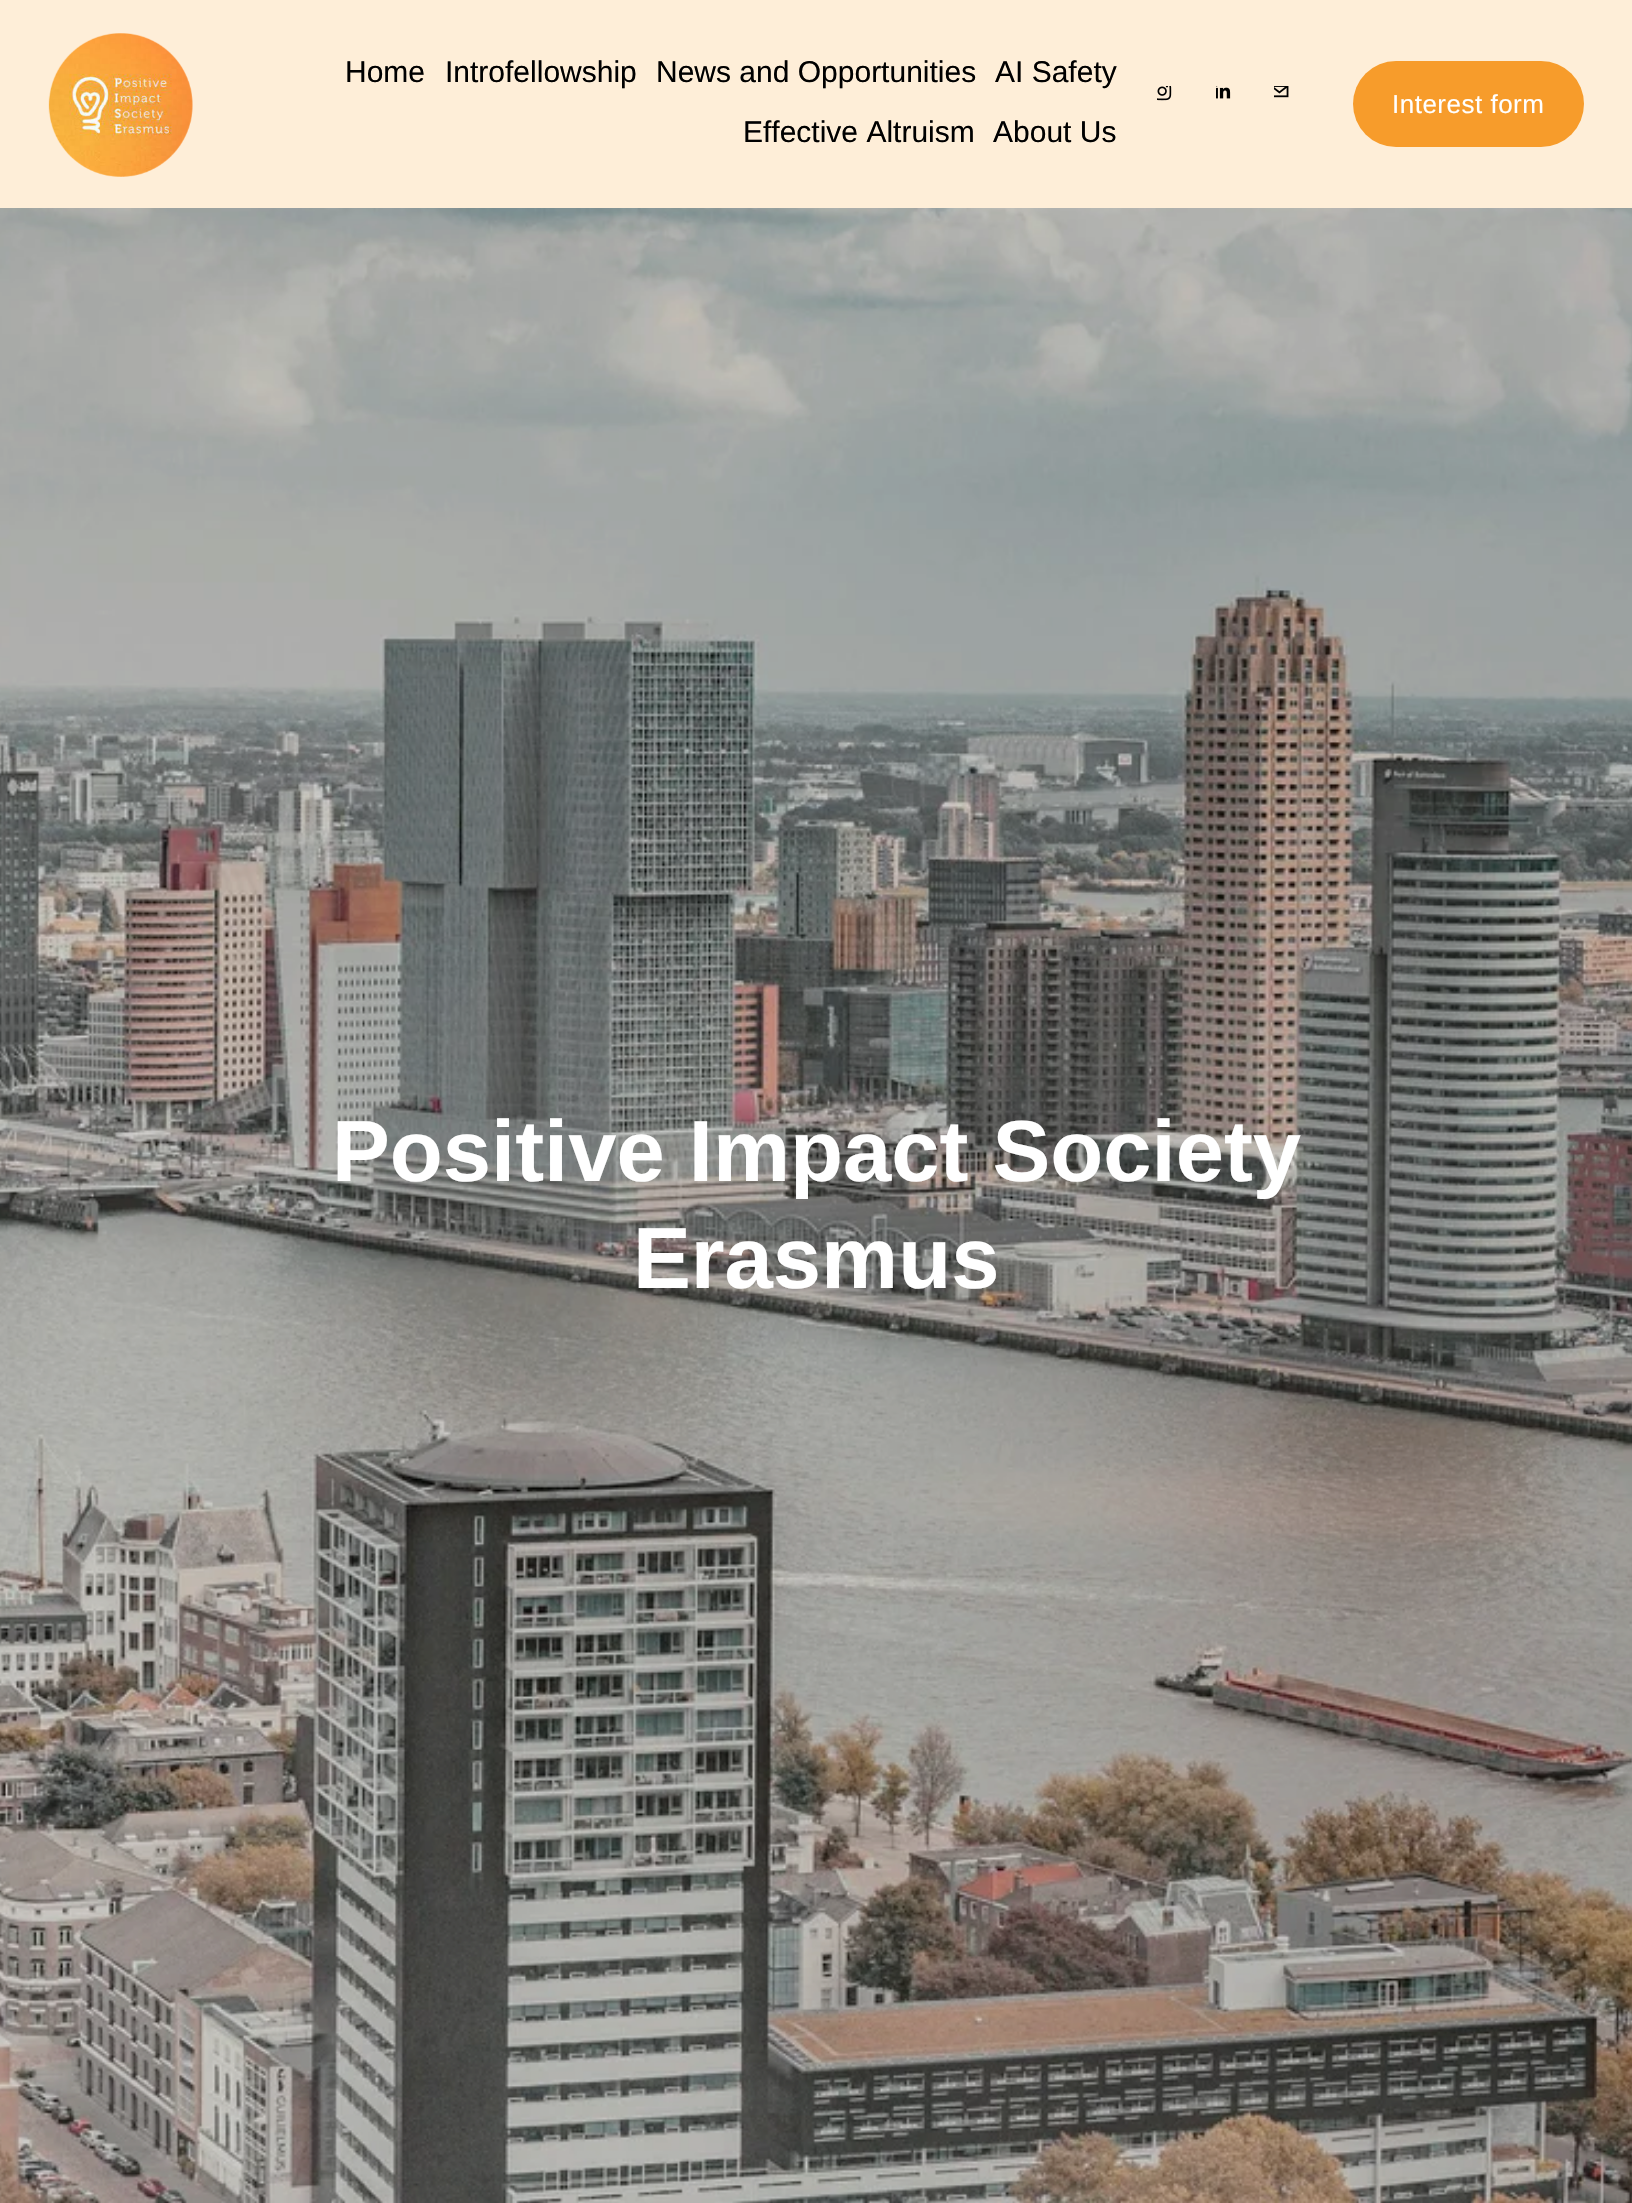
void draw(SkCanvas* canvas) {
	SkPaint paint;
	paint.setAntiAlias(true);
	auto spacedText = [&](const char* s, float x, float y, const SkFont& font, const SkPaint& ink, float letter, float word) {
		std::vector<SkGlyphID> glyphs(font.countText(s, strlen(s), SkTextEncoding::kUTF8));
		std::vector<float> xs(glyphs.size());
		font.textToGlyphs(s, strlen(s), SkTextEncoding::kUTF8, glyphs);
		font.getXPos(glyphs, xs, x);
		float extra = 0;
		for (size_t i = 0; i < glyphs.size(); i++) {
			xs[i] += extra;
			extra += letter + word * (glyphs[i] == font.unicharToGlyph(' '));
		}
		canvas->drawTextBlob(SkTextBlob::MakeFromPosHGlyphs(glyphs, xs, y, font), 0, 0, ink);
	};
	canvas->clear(0xffffffff);
	paint.setColor(0xfffeeed8);
	canvas->drawRect(SkRect::MakeXYWH(0, 0, 1632, 208), paint);
	canvas->drawImageRect(SkImages::DeferredFromEncodedData(SkData::MakeFromFileName("img1.png")), SkRect::MakeXYWH(48, 33, 145, 144), SkSamplingOptions());
	SkFont f1(fontMgr->matchFamilyStyle("Liberation Sans", SkFontStyle::Normal()), 30);
	f1.setSubpixel(true);
	paint.setColor(0xff000000);
	canvas->drawString("Home", 345, 82, f1, paint);
	canvas->drawString("Introfellowship", 445, 82, f1, paint);
	canvas->drawString("News and Opportunities", 656, 82, f1, paint);
	canvas->drawString("AI Safety", 995, 82, f1, paint);
	canvas->drawString("Effective Altruism", 743, 142, f1, paint);
	canvas->drawString("About Us", 993, 142, f1, paint);
	canvas->drawImageRect(SkImages::DeferredFromEncodedData(SkData::MakeFromFileName("img2.png")), SkRect::MakeXYWH(1157, 86, 15, 15), SkSamplingOptions());
	canvas->drawImageRect(SkImages::DeferredFromEncodedData(SkData::MakeFromFileName("img3.png")), SkRect::MakeXYWH(1216, 86, 15, 13), SkSamplingOptions());
	canvas->drawImageRect(SkImages::DeferredFromEncodedData(SkData::MakeFromFileName("img4.png")), SkRect::MakeXYWH(1274, 86, 15, 12), SkSamplingOptions());
	paint.setColor(0xfff79c2b);
	canvas->drawRoundRect(SkRect::MakeXYWH(1353, 61, 231, 86), 43, 43, paint);
	SkFont f2(fontMgr->matchFamilyStyle("Liberation Sans", SkFontStyle::Normal()), 26);
	f2.setSubpixel(true);
	paint.setColor(0xffffffff);
	spacedText("Interest form", 1392, 113, f2, paint, 0.5, 0);
	canvas->drawImageRect(SkImages::DeferredFromEncodedData(SkData::MakeFromFileName("img5.png")), SkRect::MakeXYWH(0, 208, 1632, 1995), SkSamplingOptions());
	SkFont f3(fontMgr->matchFamilyStyle("Liberation Sans", SkFontStyle::Bold()), 86.75);
	f3.setSubpixel(true);
	canvas->drawString("Positive Impact Society", 332, 1181, f3, paint);
	canvas->drawString("Erasmus", 633, 1288, f3, paint);
}
